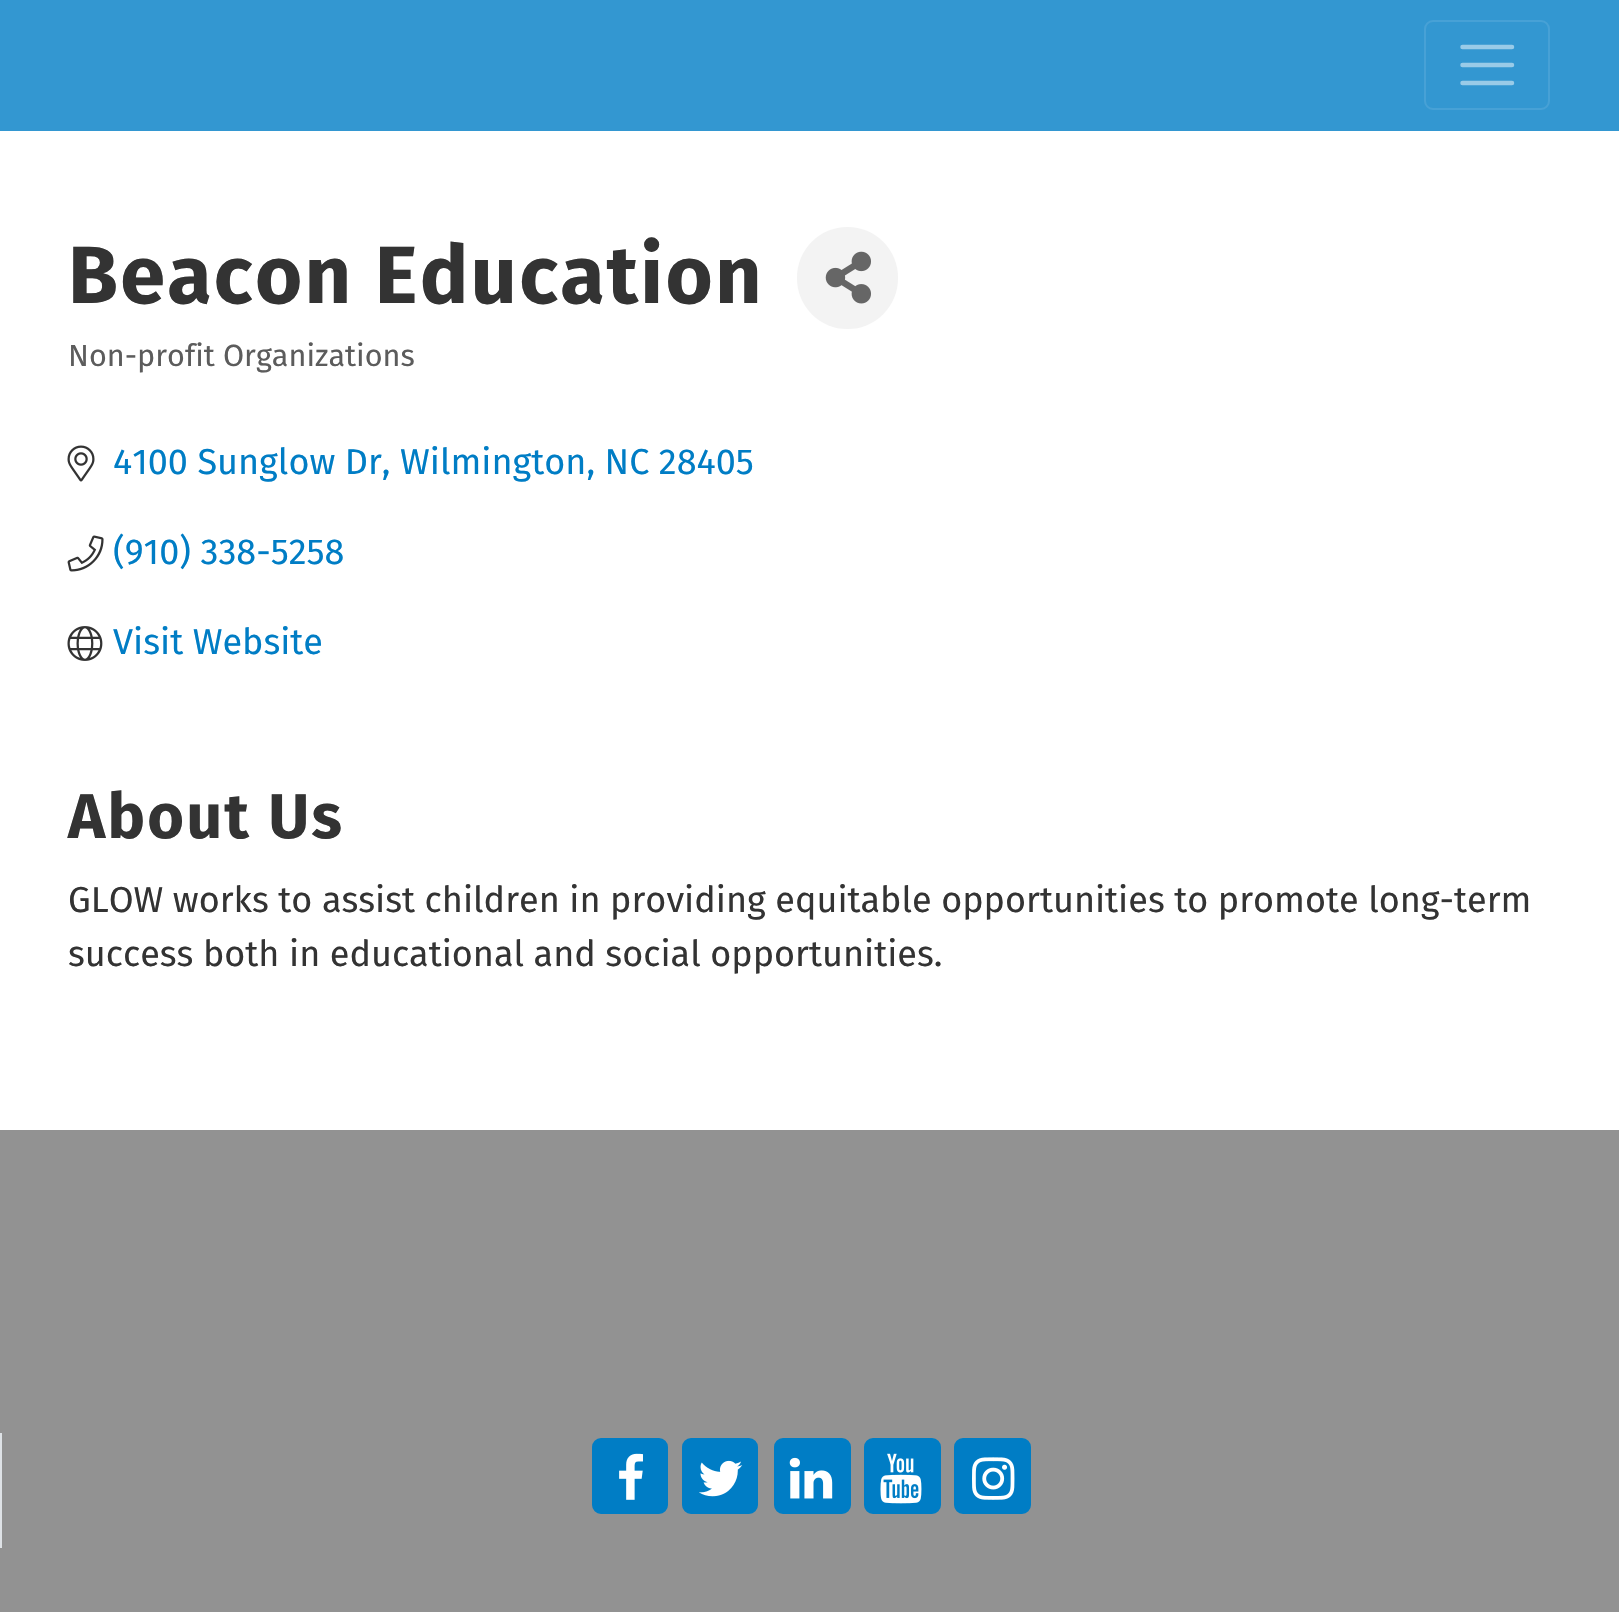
void draw(SkCanvas* canvas) {
	SkPaint paint;
	paint.setAntiAlias(true);
	auto spacedText = [&](const char* s, float x, float y, const SkFont& font, const SkPaint& ink, float letter, float word) {
		std::vector<SkGlyphID> glyphs(font.countText(s, strlen(s), SkTextEncoding::kUTF8));
		std::vector<float> xs(glyphs.size());
		font.textToGlyphs(s, strlen(s), SkTextEncoding::kUTF8, glyphs);
		font.getXPos(glyphs, xs, x);
		float extra = 0;
		for (size_t i = 0; i < glyphs.size(); i++) {
			xs[i] += extra;
			extra += letter + word * (glyphs[i] == font.unicharToGlyph(' '));
		}
		canvas->drawTextBlob(SkTextBlob::MakeFromPosHGlyphs(glyphs, xs, y, font), 0, 0, ink);
	};
	auto svgPath = [&](const char* data, bool evenOdd = false) {
		SkPath result = *SkParsePath::FromSVGString(data);
		if (evenOdd) result.setFillType(SkPathFillType::kEvenOdd);
		return result;
	};
	canvas->clear(0xffffffff);
	paint.setColor(0xff3397d1);
	canvas->drawRect(SkRect::MakeXYWH(0, 0, 1619, 131), paint);
	paint.setStroke(true);
	paint.setStrokeWidth(2);
	paint.setColor(0xff47a1d6);
	canvas->drawRoundRect(SkRect::MakeXYWH(1425, 21, 124, 88), 8, 8, paint);
	paint.setStrokeWidth(4.5);
	paint.setStrokeCap(SkPaint::kRound_Cap);
	paint.setColor(0xff99cbe8);
	canvas->drawPath(svgPath("M1462.5 47H1512M1462.5 65H1512M1462.5 83H1512"), paint);
	SkFont f1(fontMgr->matchFamilyStyle("Fira Sans", SkFontStyle::Bold()), 81);
	f1.setSubpixel(true);
	paint.setStroke(false);
	paint.setColor(0xff333333);
	spacedText("Beacon Education", 68, 303, f1, paint, 2.25, 0);
	paint.setColor(0xfff3f3f3);
	canvas->drawRoundRect(SkRect::MakeXYWH(797, 227, 101, 102), 50.5, 50.5, paint);
	canvas->drawImageRect(SkImages::DeferredFromEncodedData(SkData::MakeFromFileName("img1.png")), SkRect::MakeXYWH(825, 251, 46, 53), SkSamplingOptions());
	SkFont f2(fontMgr->matchFamilyStyle("Fira Sans", SkFontStyle::Normal()), 30.6);
	f2.setSubpixel(true);
	paint.setColor(0xff5c5c5c);
	canvas->drawString("Non-profit Organizations", 68, 366, f2, paint);
	canvas->drawImageRect(SkImages::DeferredFromEncodedData(SkData::MakeFromFileName("img2.png")), SkRect::MakeXYWH(67, 445, 28, 37), SkSamplingOptions());
	SkFont f3(fontMgr->matchFamilyStyle("Fira Sans", SkFontStyle::Normal()), 36);
	f3.setSubpixel(true);
	paint.setColor(0xff007dc5);
	canvas->drawString("4100 Sunglow Dr, Wilmington, NC 28405", 113, 474, f3, paint);
	canvas->drawImageRect(SkImages::DeferredFromEncodedData(SkData::MakeFromFileName("img3.png")), SkRect::MakeXYWH(67, 535, 37, 37), SkSamplingOptions());
	canvas->drawString("(910) 338-5258", 113, 564, f3, paint);
	canvas->drawImageRect(SkImages::DeferredFromEncodedData(SkData::MakeFromFileName("img4.png")), SkRect::MakeXYWH(67, 626, 36, 35), SkSamplingOptions());
	canvas->drawString("Visit Website", 113, 654, f3, paint);
	SkFont f4(fontMgr->matchFamilyStyle("Fira Sans", SkFontStyle::Bold()), 63);
	f4.setSubpixel(true);
	paint.setColor(0xff333333);
	spacedText("About Us", 68, 838, f4, paint, 2.25, 0);
	canvas->drawString("GLOW works to assist children in providing equitable opportunities to promote long-term", 68, 912, f3, paint);
	canvas->drawString("success both in educational and social opportunities.", 68, 966, f3, paint);
	paint.setColor(0xff929292);
	canvas->drawRect(SkRect::MakeXYWH(0, 1130, 1619, 482), paint);
	paint.setColor(0xffdee2e6);
	canvas->drawRect(SkRect::MakeXYWH(0, 1433, 2, 115), paint);
	paint.setColor(0xff007dc5);
	canvas->drawRoundRect(SkRect::MakeXYWH(593, 1439, 74, 74), 8, 8, paint);
	paint.setStroke(true);
	paint.setStrokeWidth(2);
	paint.setStrokeCap(SkPaint::kButt_Cap);
	canvas->drawRoundRect(SkRect::MakeXYWH(593, 1439, 74, 74), 8, 8, paint);
	canvas->drawImageRect(SkImages::DeferredFromEncodedData(SkData::MakeFromFileName("img5.png")), SkRect::MakeXYWH(619, 1453, 24, 47), SkSamplingOptions());
	paint.setStroke(false);
	canvas->drawRoundRect(SkRect::MakeXYWH(683, 1439, 74, 74), 8, 8, paint);
	paint.setStroke(true);
	canvas->drawRoundRect(SkRect::MakeXYWH(683, 1439, 74, 74), 8, 8, paint);
	canvas->drawImageRect(SkImages::DeferredFromEncodedData(SkData::MakeFromFileName("img6.png")), SkRect::MakeXYWH(699, 1460, 44, 37), SkSamplingOptions());
	paint.setStroke(false);
	canvas->drawRoundRect(SkRect::MakeXYWH(775, 1439, 75, 74), 8, 8, paint);
	paint.setStroke(true);
	canvas->drawRoundRect(SkRect::MakeXYWH(775, 1439, 75, 74), 8, 8, paint);
	canvas->drawImageRect(SkImages::DeferredFromEncodedData(SkData::MakeFromFileName("img7.png")), SkRect::MakeXYWH(789, 1457, 44, 42), SkSamplingOptions());
	paint.setStroke(false);
	canvas->drawRoundRect(SkRect::MakeXYWH(865, 1439, 75, 74), 8, 8, paint);
	paint.setStroke(true);
	canvas->drawRoundRect(SkRect::MakeXYWH(865, 1439, 75, 74), 8, 8, paint);
	canvas->drawImageRect(SkImages::DeferredFromEncodedData(SkData::MakeFromFileName("img8.png")), SkRect::MakeXYWH(880, 1453, 42, 51), SkSamplingOptions());
	paint.setStroke(false);
	canvas->drawRoundRect(SkRect::MakeXYWH(955, 1439, 75, 74), 8, 8, paint);
	paint.setStroke(true);
	canvas->drawRoundRect(SkRect::MakeXYWH(955, 1439, 75, 74), 8, 8, paint);
	canvas->drawImageRect(SkImages::DeferredFromEncodedData(SkData::MakeFromFileName("img9.png")), SkRect::MakeXYWH(972, 1457, 43, 43), SkSamplingOptions());
}
